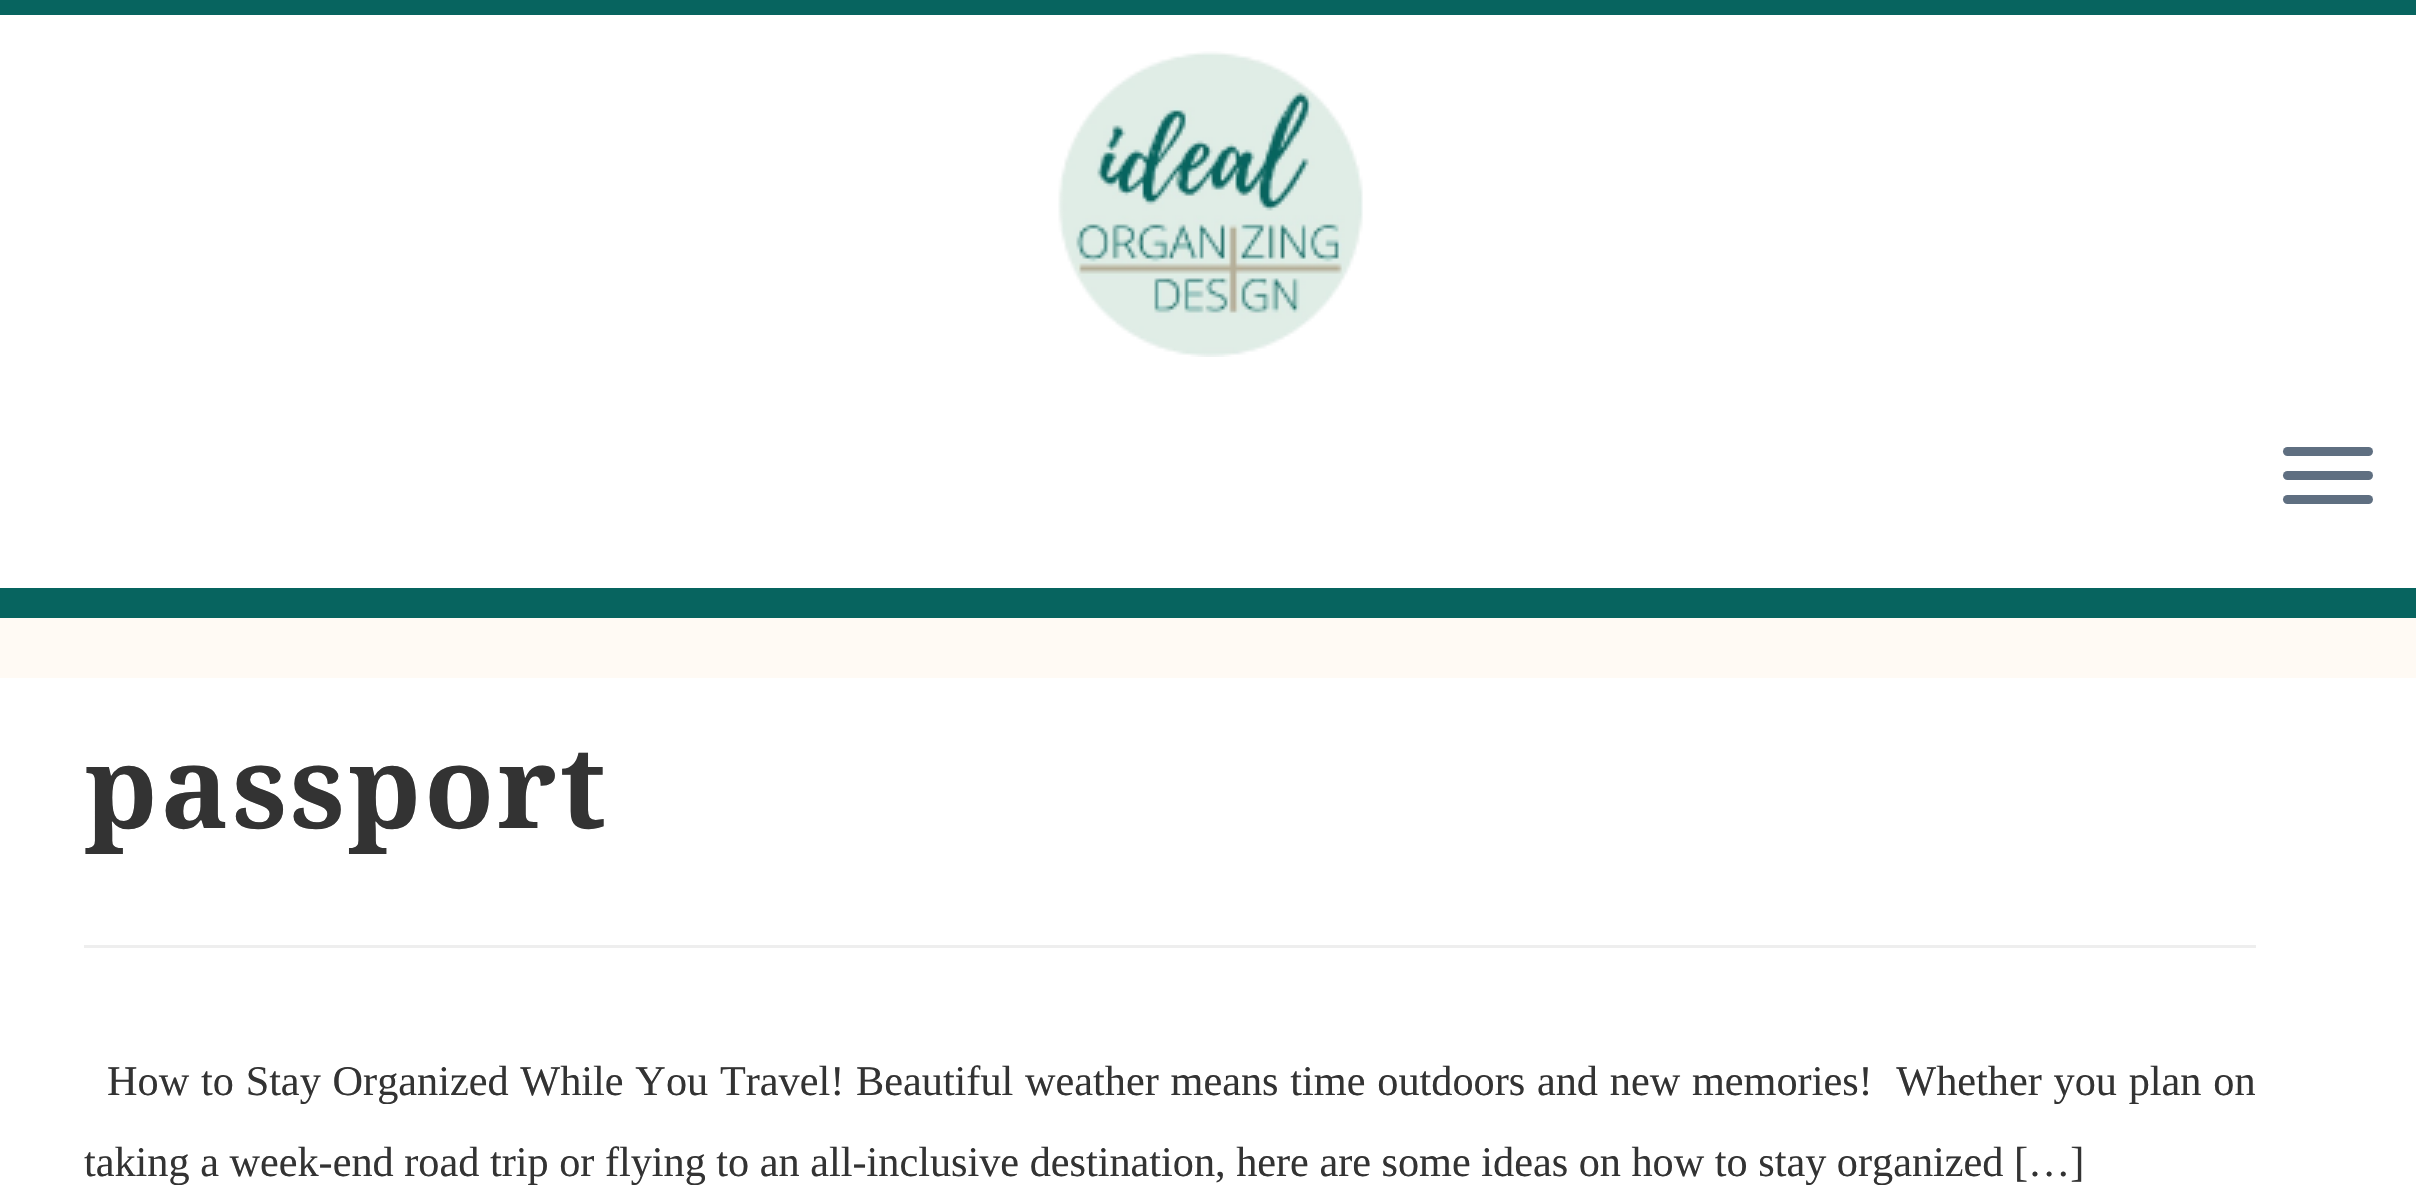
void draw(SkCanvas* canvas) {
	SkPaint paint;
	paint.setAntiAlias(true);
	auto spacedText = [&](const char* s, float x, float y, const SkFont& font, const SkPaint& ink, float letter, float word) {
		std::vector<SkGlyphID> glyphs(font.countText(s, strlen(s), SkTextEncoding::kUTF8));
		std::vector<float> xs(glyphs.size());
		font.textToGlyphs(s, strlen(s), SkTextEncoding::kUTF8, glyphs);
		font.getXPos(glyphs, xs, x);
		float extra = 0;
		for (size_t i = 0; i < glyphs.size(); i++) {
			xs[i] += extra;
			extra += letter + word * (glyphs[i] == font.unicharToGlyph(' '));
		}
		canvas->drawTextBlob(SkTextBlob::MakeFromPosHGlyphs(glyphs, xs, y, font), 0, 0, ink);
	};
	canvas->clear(0xfffffaf4);
	paint.setColor(0xffffffff);
	canvas->drawRect(SkRect::MakeXYWH(0, 15, 2416, 573), paint);
	paint.setColor(0xff07645f);
	canvas->drawRect(SkRect::MakeXYWH(0, 0, 2416, 15), paint);
	canvas->drawRect(SkRect::MakeXYWH(0, 588, 2416, 30), paint);
	canvas->drawImageRect(SkImages::DeferredFromEncodedData(SkData::MakeFromFileName("img1.png")), SkRect::MakeXYWH(1058, 51, 305, 306), SkSamplingOptions());
	paint.setColor(0xff5f6f81);
	canvas->drawRoundRect(SkRect::MakeXYWH(2283, 447, 90, 9), 4.5, 4.5, paint);
	canvas->drawRoundRect(SkRect::MakeXYWH(2283, 471, 90, 9), 4.5, 4.5, paint);
	canvas->drawRoundRect(SkRect::MakeXYWH(2283, 495, 90, 9), 4.5, 4.5, paint);
	paint.setColor(0xffffffff);
	canvas->drawRect(SkRect::MakeXYWH(0, 678, 2416, 510), paint);
	SkFont f1(fontMgr->matchFamilyStyle("Noto Serif", SkFontStyle::Bold()), 114);
	f1.setSubpixel(true);
	paint.setColor(0xff333333);
	spacedText("passport", 84, 828, f1, paint, 3, 0);
	paint.setColor(0xffeeeeee);
	canvas->drawRect(SkRect::MakeXYWH(84, 945, 2172, 3), paint);
	SkFont f2(fontMgr->matchFamilyStyle("Liberation Serif", SkFontStyle::Normal()), 42.25);
	f2.setSubpixel(true);
	paint.setColor(0xff333333);
	spacedText("How to Stay Organized While You Travel! Beautiful weather means time outdoors and new memories!  Whether you plan on", 107, 1095, f2, paint, 0, 1.25);
	canvas->drawString("taking a week-end road trip or flying to an all-inclusive destination, here are some ideas on how to stay organized […]", 84, 1176, f2, paint);
}
